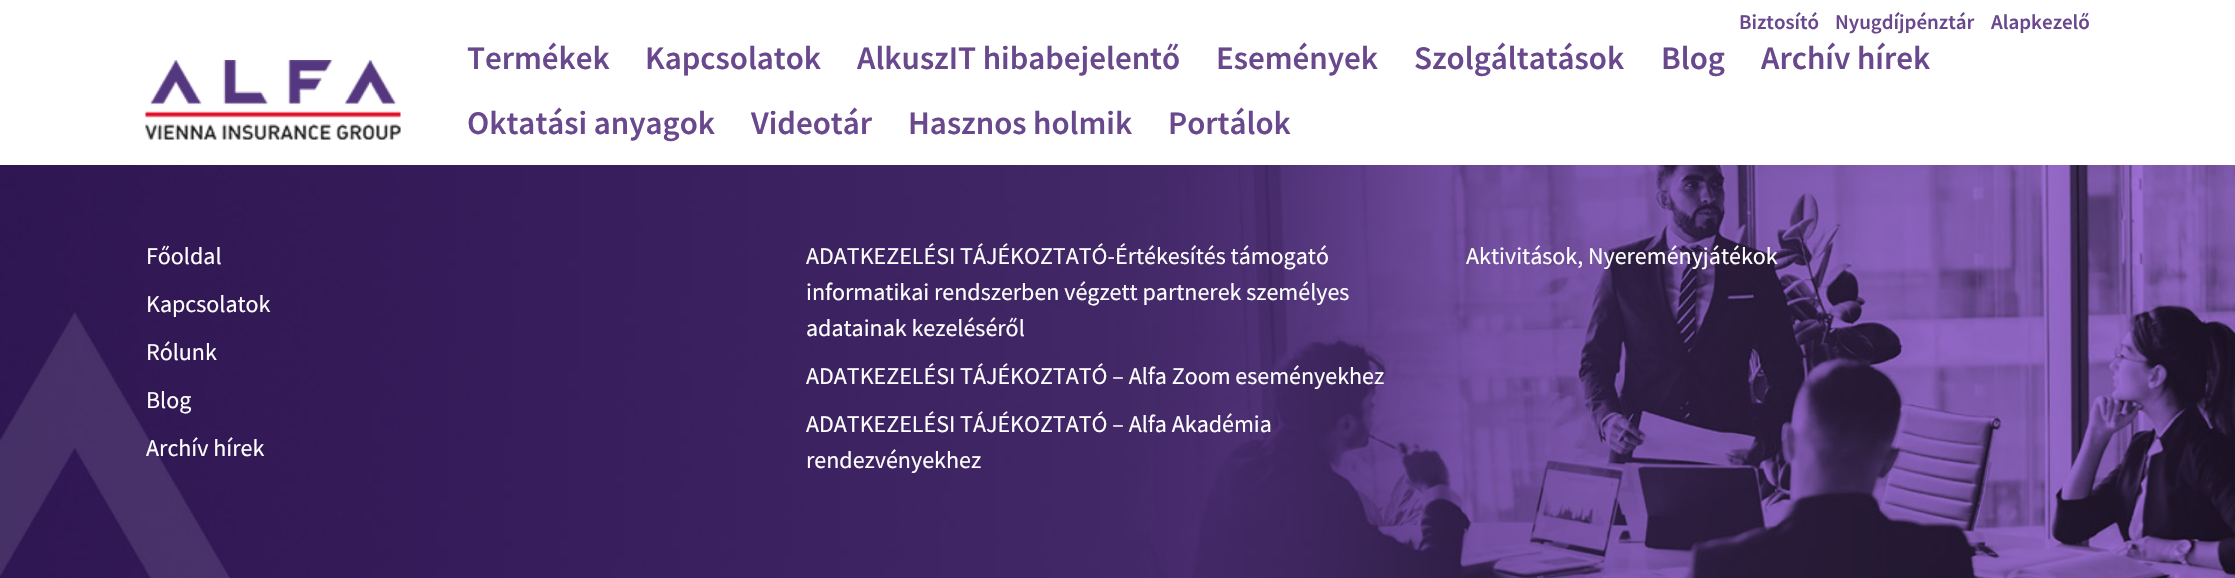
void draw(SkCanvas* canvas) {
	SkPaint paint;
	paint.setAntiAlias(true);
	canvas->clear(0xffffffff);
	SkFont f1(fontMgr->matchFamilyStyle("Source Sans Pro", SkFontStyle(600, SkFontStyle::kNormal_Width, SkFontStyle::kUpright_Slant)), 21);
	f1.setSubpixel(true);
	paint.setColor(0xff6a488e);
	canvas->drawString("Biztosító", 1739, 29, f1, paint);
	canvas->drawString("Nyugdíjpénztár", 1835, 29, f1, paint);
	canvas->drawString("Alapkezelő", 1991, 29, f1, paint);
	canvas->drawImageRect(SkImages::DeferredFromEncodedData(SkData::MakeFromFileName("img1.png")), SkRect::MakeXYWH(145, 60, 256, 80), SkSamplingOptions());
	SkFont f2(fontMgr->matchFamilyStyle("Source Sans Pro", SkFontStyle(600, SkFontStyle::kNormal_Width, SkFontStyle::kUpright_Slant)), 33);
	f2.setSubpixel(true);
	canvas->drawString("Termékek", 467, 69, f2, paint);
	canvas->drawString("Kapcsolatok", 645, 69, f2, paint);
	canvas->drawString("AlkuszIT hibabejelentő", 857, 69, f2, paint);
	canvas->drawString("Események", 1216, 69, f2, paint);
	canvas->drawString("Szolgáltatások", 1414, 69, f2, paint);
	canvas->drawString("Blog", 1661, 69, f2, paint);
	canvas->drawString("Archív hírek", 1761, 69, f2, paint);
	canvas->drawString("Oktatási anyagok", 467, 134, f2, paint);
	canvas->drawString("Videotár", 751, 134, f2, paint);
	canvas->drawString("Hasznos holmik", 908, 134, f2, paint);
	canvas->drawString("Portálok", 1168, 134, f2, paint);
	canvas->drawImageRect(SkImages::DeferredFromEncodedData(SkData::MakeFromFileName("img2.png")), SkRect::MakeXYWH(0, 165, 2235, 413), SkSamplingOptions());
	SkFont f3(fontMgr->matchFamilyStyle("Source Sans Pro", SkFontStyle::Normal()), 24);
	f3.setSubpixel(true);
	paint.setColor(0xffffffff);
	canvas->drawString("Főoldal", 146, 264, f3, paint);
	canvas->drawString("Kapcsolatok", 146, 312, f3, paint);
	canvas->drawString("Rólunk", 146, 360, f3, paint);
	canvas->drawString("Blog", 146, 408, f3, paint);
	canvas->drawString("Archív hírek", 146, 456, f3, paint);
	canvas->drawString("ADATKEZELÉSI TÁJÉKOZTATÓ-Értékesítés támogató", 806, 264, f3, paint);
	canvas->drawString("informatikai rendszerben végzett partnerek személyes", 806, 300, f3, paint);
	canvas->drawString("adatainak kezeléséről", 806, 336, f3, paint);
	canvas->drawString("ADATKEZELÉSI TÁJÉKOZTATÓ – Alfa Zoom eseményekhez", 806, 384, f3, paint);
	canvas->drawString("ADATKEZELÉSI TÁJÉKOZTATÓ – Alfa Akadémia", 806, 432, f3, paint);
	canvas->drawString("rendezvényekhez", 806, 468, f3, paint);
	canvas->drawString("Aktivitások, Nyereményjátékok", 1466, 264, f3, paint);
}
